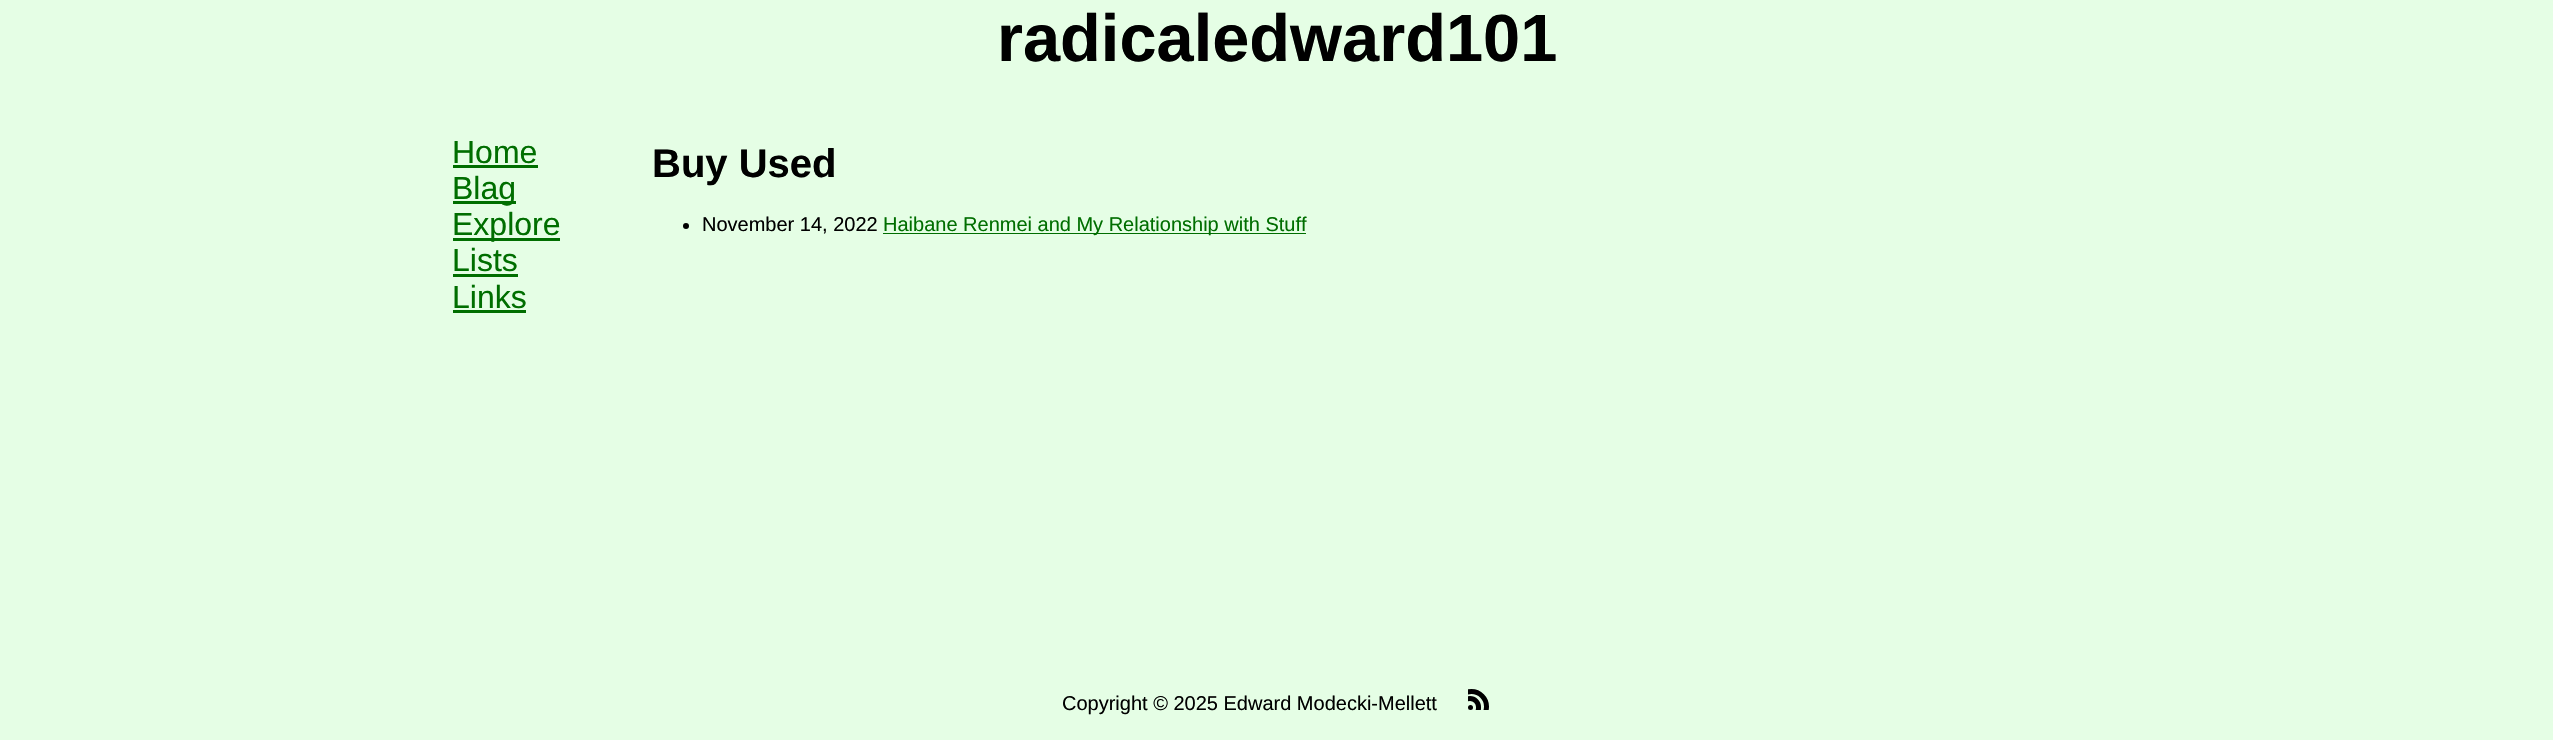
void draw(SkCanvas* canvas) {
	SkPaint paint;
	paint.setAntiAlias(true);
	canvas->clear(0xffe5fee5);
	SkFont f1(fontMgr->matchFamilyStyle("Liberation Sans", SkFontStyle::Bold()), 66.75);
	f1.setSubpixel(true);
	paint.setColor(0xff000000);
	canvas->drawString("radicaledward101", 997, 61, f1, paint);
	SkFont f2(fontMgr->matchFamilyStyle("Liberation Sans", SkFontStyle::Normal()), 32);
	f2.setSubpixel(true);
	paint.setColor(0xff006e00);
	canvas->drawString("Home", 452, 163, f2, paint);
	canvas->drawRect(SkRect::MakeXYWH(453, 165, 85, 3), paint);
	canvas->drawRect(SkRect::MakeXYWH(453, 201, 63, 3), paint);
	canvas->drawString("Blag", 452, 199, f2, paint);
	canvas->drawRect(SkRect::MakeXYWH(453, 238, 107, 3), paint);
	canvas->drawString("Explore", 452, 235, f2, paint);
	canvas->drawString("Lists", 452, 271, f2, paint);
	canvas->drawRect(SkRect::MakeXYWH(453, 274, 65, 3), paint);
	canvas->drawString("Links", 452, 308, f2, paint);
	canvas->drawRect(SkRect::MakeXYWH(453, 310, 73, 3), paint);
	SkFont f3(fontMgr->matchFamilyStyle("Liberation Sans", SkFontStyle::Bold()), 40);
	f3.setSubpixel(true);
	paint.setColor(0xff000000);
	canvas->drawString("Buy Used", 652, 177, f3, paint);
	canvas->drawCircle(686, 226, 3, paint);
	SkFont f4(fontMgr->matchFamilyStyle("Liberation Sans", SkFontStyle::Normal()), 20);
	f4.setSubpixel(true);
	canvas->drawString("November 14, 2022", 702, 231, f4, paint);
	paint.setColor(0xff006e00);
	canvas->drawRect(SkRect::MakeXYWH(883, 233, 423, 1), paint);
	canvas->drawString("Haibane Renmei and My Relationship with Stuff", 883, 231, f4, paint);
	paint.setColor(0xff000000);
	canvas->drawString("Copyright © 2025 Edward Modecki-Mellett", 1062, 710, f4, paint);
	canvas->drawCircle(1470.5, 707.5, 2.5, paint);
	canvas->save();
	canvas->clipRect(SkRect::MakeXYWH(1468, 685, 25, 25));
	paint.setStroke(true);
	paint.setStrokeWidth(5);
	canvas->drawRoundRect(SkRect::MakeXYWH(1461.5, 698.5, 17, 18), 8.5, 8.5, paint);
	canvas->drawCircle(1471.5, 706.5, 15, paint);
	canvas->restore();
}
